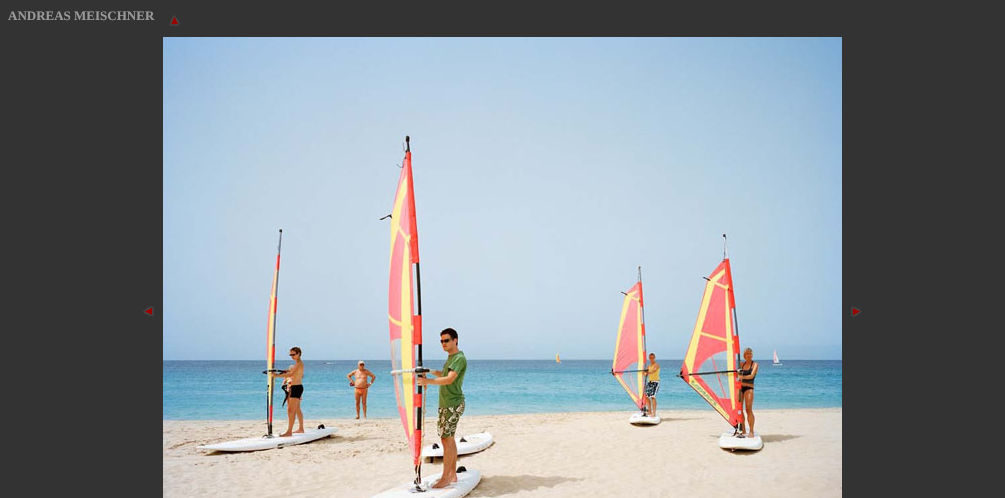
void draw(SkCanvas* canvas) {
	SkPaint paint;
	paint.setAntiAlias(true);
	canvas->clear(0xff333333);
	SkFont f1(fontMgr->matchFamilyStyle("Liberation Serif", SkFontStyle::Bold()), 13);
	f1.setSubpixel(true);
	paint.setColor(0xff999999);
	canvas->drawString("ANDREAS MEISCHNER", 8, 20, f1, paint);
	canvas->drawImageRect(SkImages::DeferredFromEncodedData(SkData::MakeFromFileName("img1.png")), SkRect::MakeXYWH(169, 15, 11, 11), SkSamplingOptions());
	canvas->drawImageRect(SkImages::DeferredFromEncodedData(SkData::MakeFromFileName("img2.png")), SkRect::MakeXYWH(143, 306, 11, 11), SkSamplingOptions());
	canvas->drawImageRect(SkImages::DeferredFromEncodedData(SkData::MakeFromFileName("img3.png")), SkRect::MakeXYWH(163, 37, 679, 461), SkSamplingOptions());
	canvas->drawImageRect(SkImages::DeferredFromEncodedData(SkData::MakeFromFileName("img4.png")), SkRect::MakeXYWH(851, 306, 11, 11), SkSamplingOptions());
}
